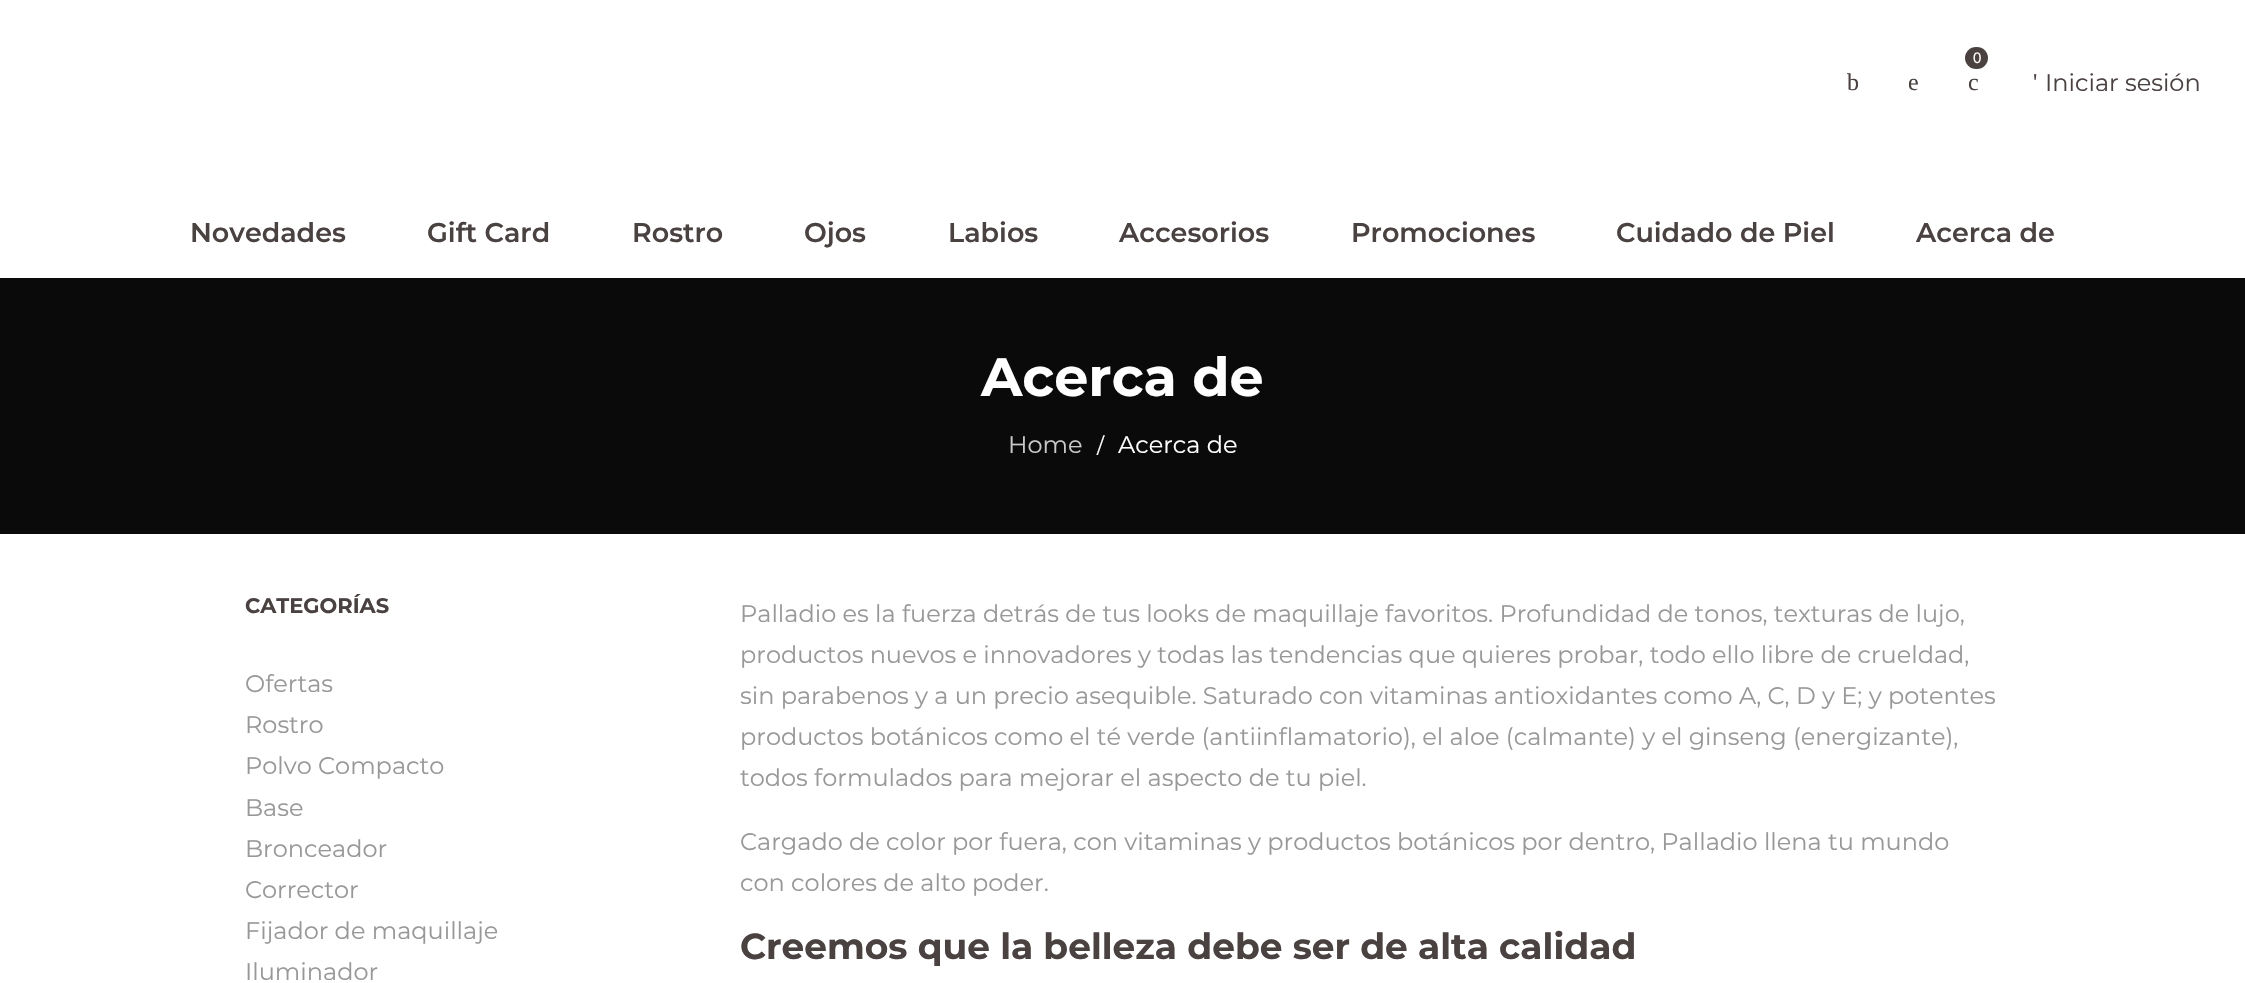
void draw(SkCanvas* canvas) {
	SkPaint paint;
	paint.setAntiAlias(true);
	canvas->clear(0xffffffff);
	SkFont f1(fontMgr->matchFamilyStyle("Liberation Serif", SkFontStyle::Normal()), 24);
	f1.setSubpixel(true);
	paint.setColor(0xff4a4141);
	canvas->drawString("b", 1847, 90, f1, paint);
	canvas->drawString("e", 1908, 90, f1, paint);
	canvas->drawRoundRect(SkRect::MakeXYWH(1965, 47, 23, 22), 11, 11, paint);
	SkFont f2(fontMgr->matchFamilyStyle("Liberation Sans", SkFontStyle::Normal()), 15);
	f2.setSubpixel(true);
	paint.setColor(0xffffffff);
	canvas->drawString("0", 1973, 63, f2, paint);
	paint.setColor(0xff4a4141);
	canvas->drawString("c", 1968, 90, f1, paint);
	canvas->drawString("'", 2033, 90, f1, paint);
	SkFont f3(fontMgr->matchFamilyStyle("Montserrat", SkFontStyle::Normal()), 24);
	f3.setSubpixel(true);
	canvas->drawString("Iniciar sesión", 2045, 91, f3, paint);
	SkFont f4(fontMgr->matchFamilyStyle("Montserrat", SkFontStyle(600, SkFontStyle::kNormal_Width, SkFontStyle::kUpright_Slant)), 27);
	f4.setSubpixel(true);
	canvas->drawString("Novedades", 190, 242, f4, paint);
	canvas->drawString("Gift Card", 427, 242, f4, paint);
	canvas->drawString("Rostro", 632, 242, f4, paint);
	canvas->drawString("Ojos", 804, 242, f4, paint);
	canvas->drawString("Labios", 948, 242, f4, paint);
	canvas->drawString("Accesorios", 1119, 242, f4, paint);
	canvas->drawString("Promociones", 1351, 242, f4, paint);
	canvas->drawString("Cuidado de Piel", 1616, 242, f4, paint);
	canvas->drawString("Acerca de", 1916, 242, f4, paint);
	paint.setColor(0xff0a0a0a);
	canvas->drawRect(SkRect::MakeXYWH(0, 278, 2245, 256), paint);
	SkFont f5(fontMgr->matchFamilyStyle("Montserrat", SkFontStyle::Bold()), 54);
	f5.setSubpixel(true);
	paint.setColor(0xffffffff);
	canvas->drawString("Acerca de", 981, 396, f5, paint);
	paint.setColor(0xffc9c9c9);
	canvas->drawString("Home", 1008, 453, f3, paint);
	SkFont f6(fontMgr->matchFamilyStyle("Montserrat", SkFontStyle::Normal()), 21);
	f6.setSubpixel(true);
	paint.setColor(0xffffffff);
	canvas->drawString("/", 1097, 453, f6, paint);
	canvas->drawString("Acerca de", 1118, 453, f3, paint);
	SkFont f7(fontMgr->matchFamilyStyle("Montserrat", SkFontStyle::Bold()), 21);
	f7.setSubpixel(true);
	paint.setColor(0xff4a4141);
	canvas->drawString("CATEGORÍAS", 245, 613, f7, paint);
	paint.setColor(0xff989898);
	canvas->drawString("Ofertas", 245, 692, f3, paint);
	canvas->drawString("Rostro", 245, 733, f3, paint);
	canvas->drawString("Polvo Compacto", 245, 774, f3, paint);
	canvas->drawString("Base", 245, 816, f3, paint);
	canvas->drawString("Bronceador", 245, 857, f3, paint);
	canvas->drawString("Corrector", 245, 898, f3, paint);
	canvas->drawString("Fijador de maquillaje", 245, 939, f3, paint);
	canvas->drawString("Iluminador", 245, 980, f3, paint);
	canvas->drawString("Palladio es la fuerza detrás de tus looks de maquillaje favoritos. Profundidad de tonos, texturas de lujo,", 740, 622, f3, paint);
	canvas->drawString("productos nuevos e innovadores y todas las tendencias que quieres probar, todo ello libre de crueldad,", 740, 663, f3, paint);
	canvas->drawString("sin parabenos y a un precio asequible. Saturado con vitaminas antioxidantes como A, C, D y E; y potentes", 740, 704, f3, paint);
	canvas->drawString("productos botánicos como el té verde (antiinflamatorio), el aloe (calmante) y el ginseng (energizante),", 740, 745, f3, paint);
	canvas->drawString("todos formulados para mejorar el aspecto de tu piel.", 740, 786, f3, paint);
	canvas->drawString("Cargado de color por fuera, con vitaminas y productos botánicos por dentro, Palladio llena tu mundo", 740, 850, f3, paint);
	canvas->drawString("con colores de alto poder.", 740, 891, f3, paint);
	SkFont f8(fontMgr->matchFamilyStyle("Montserrat", SkFontStyle::Bold()), 36);
	f8.setSubpixel(true);
	paint.setColor(0xff4a4141);
	canvas->drawString("Creemos que la belleza debe ser de alta calidad", 740, 959, f8, paint);
}
